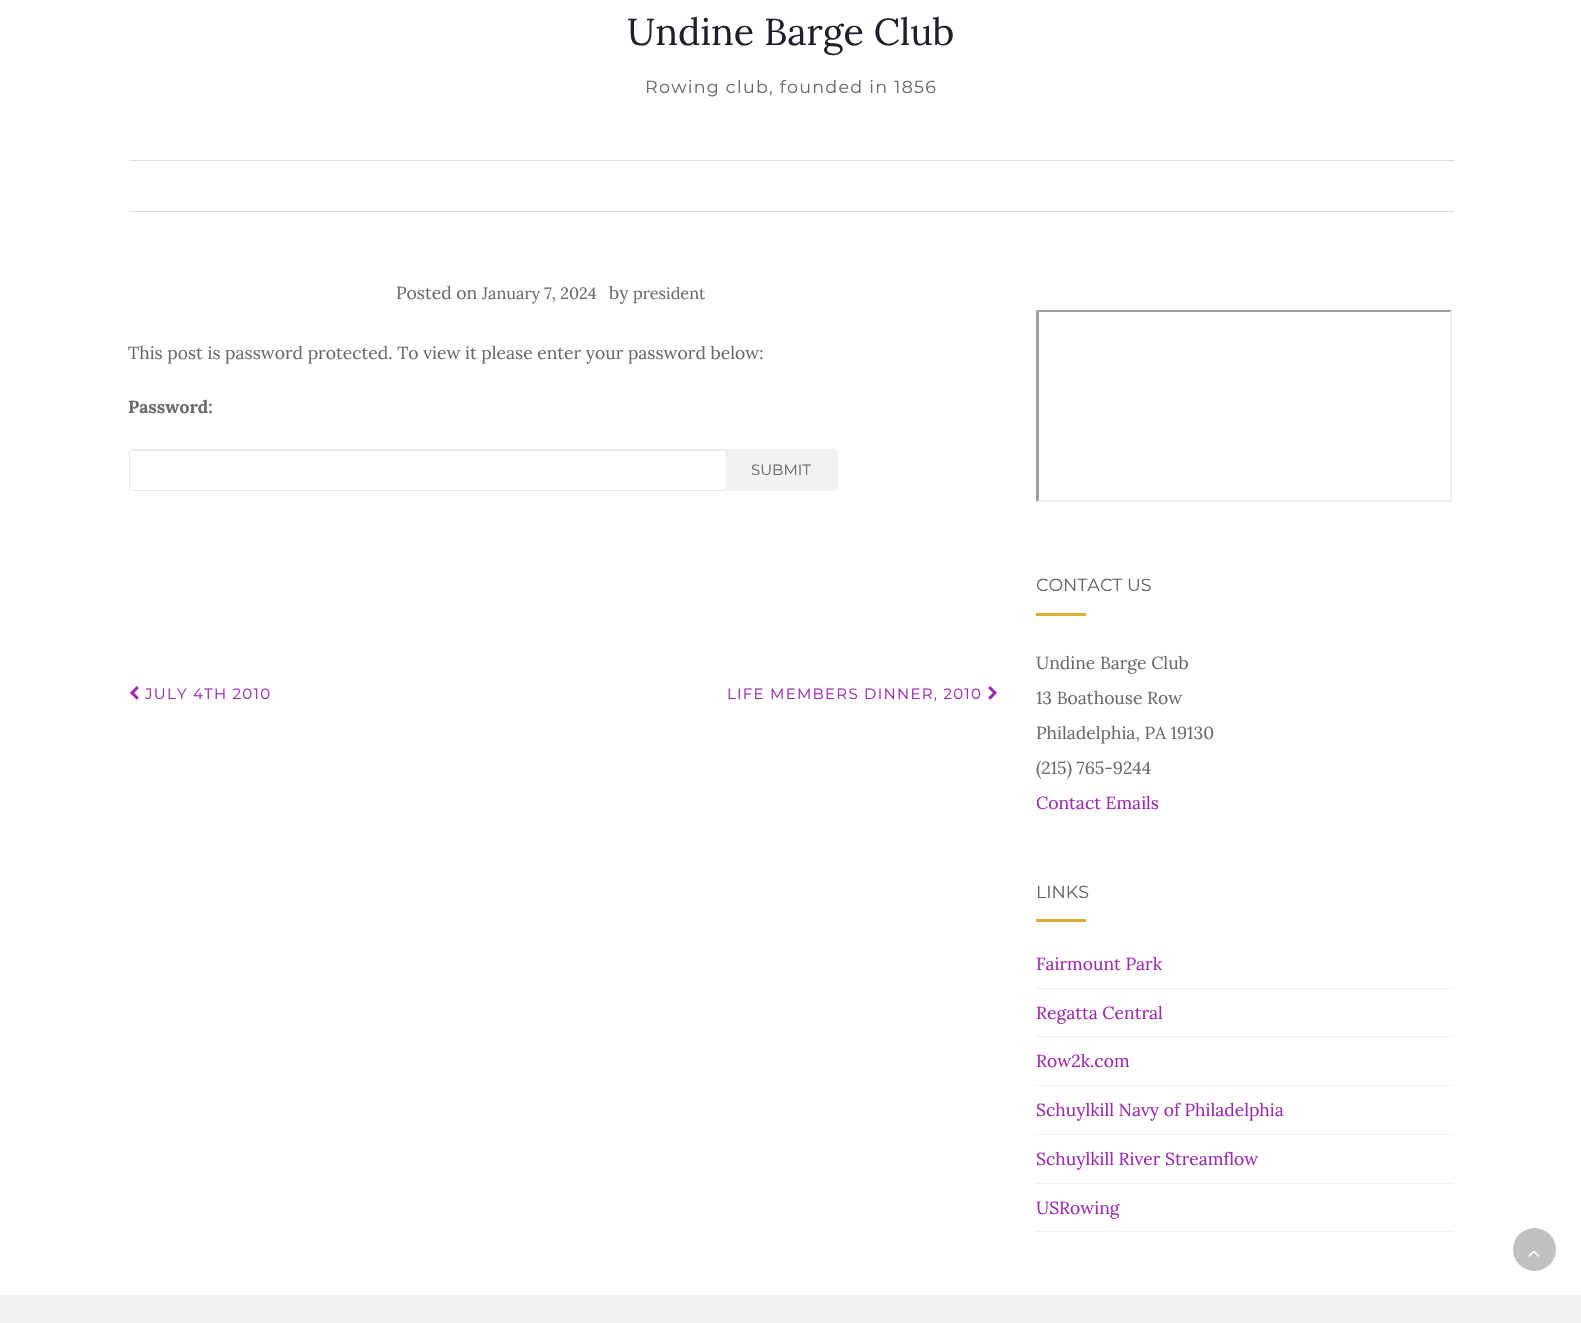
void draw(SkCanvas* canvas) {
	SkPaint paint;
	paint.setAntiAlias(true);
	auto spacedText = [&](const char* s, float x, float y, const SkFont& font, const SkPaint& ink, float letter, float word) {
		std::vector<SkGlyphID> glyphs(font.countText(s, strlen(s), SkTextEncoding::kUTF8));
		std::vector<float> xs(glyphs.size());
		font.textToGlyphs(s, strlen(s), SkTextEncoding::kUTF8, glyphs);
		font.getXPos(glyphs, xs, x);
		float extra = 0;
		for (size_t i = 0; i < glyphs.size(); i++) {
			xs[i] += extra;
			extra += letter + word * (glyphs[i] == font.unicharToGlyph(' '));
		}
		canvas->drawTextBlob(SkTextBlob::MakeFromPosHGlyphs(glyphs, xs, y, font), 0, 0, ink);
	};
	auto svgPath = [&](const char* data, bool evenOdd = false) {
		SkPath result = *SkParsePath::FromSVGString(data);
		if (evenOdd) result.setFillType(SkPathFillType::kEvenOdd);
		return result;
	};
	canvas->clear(0xffffffff);
	SkFont f1(fontMgr->matchFamilyStyle("Lora", SkFontStyle::Normal()), 37.5);
	f1.setSubpixel(true);
	paint.setColor(0xff1c202a);
	canvas->drawString("Undine Barge Club", 627, 45, f1, paint);
	SkFont f2(fontMgr->matchFamilyStyle("Montserrat", SkFontStyle::Normal()), 17.5);
	f2.setSubpixel(true);
	paint.setColor(0xff696969);
	spacedText("Rowing club, founded in 1856", 645, 93, f2, paint, 1.25, 0);
	paint.setColor(0xffdddddd);
	canvas->drawRect(SkRect::MakeXYWH(129, 160, 1325, 1), paint);
	paint.setColor(0xffdedede);
	canvas->drawRect(SkRect::MakeXYWH(129, 211, 1325, 1), paint);
	SkFont f3(fontMgr->matchFamilyStyle("Lora", SkFontStyle::Normal()), 17.5);
	f3.setSubpixel(true);
	paint.setColor(0xff696969);
	canvas->drawString("Posted on", 396, 299, f3, paint);
	SkFont f4(fontMgr->matchFamilyStyle("Lora", SkFontStyle::Normal()), 16.25);
	f4.setSubpixel(true);
	canvas->drawString("January 7, 2024", 482, 299, f4, paint);
	canvas->drawString("by", 609, 299, f3, paint);
	canvas->drawString("president", 633, 299, f4, paint);
	canvas->drawString("This post is password protected. To view it please enter your password below:", 128, 359, f3, paint);
	SkFont f5(fontMgr->matchFamilyStyle("Lora", SkFontStyle::Bold()), 17.5);
	f5.setSubpixel(true);
	canvas->drawString("Password:", 128, 413, f5, paint);
	paint.setColor(0xffececec);
	canvas->drawPath(svgPath("M132 451H725V450H132C130 450 130 452 130 454C130 452 131 451 132 451Z"), paint);
	paint.setStroke(true);
	paint.setStrokeWidth(1);
	paint.setColor(0xffe8e8e8);
	canvas->drawPath(svgPath("M133 449.5H725.5V490.5H133C131 490.5 129.5 489 129.5 487V453C129.5 451 131 449.5 133 449.5Z"), paint);
	paint.setStroke(false);
	paint.setColor(0xfff2f2f2);
	canvas->drawPath(svgPath("M725 449H833C836 449 838 451 838 454V486C838 489 836 491 833 491H725Z"), paint);
	SkFont f6(fontMgr->matchFamilyStyle("Montserrat", SkFontStyle::Normal()), 15);
	f6.setSubpixel(true);
	paint.setColor(0xff696969);
	canvas->drawString("SUBMIT", 751, 475, f6, paint);
	canvas->drawImageRect(SkImages::DeferredFromEncodedData(SkData::MakeFromFileName("img1.png")), SkRect::MakeXYWH(130, 686, 9, 14), SkSamplingOptions());
	paint.setColor(0xff9c27b0);
	spacedText("JULY 4TH 2010", 145, 699, f6, paint, 1.25, 0);
	spacedText("LIFE MEMBERS DINNER, 2010", 727, 699, f6, paint, 1.25, 0);
	canvas->drawImageRect(SkImages::DeferredFromEncodedData(SkData::MakeFromFileName("img2.png")), SkRect::MakeXYWH(988, 686, 9, 14), SkSamplingOptions());
	paint.setColor(0xff9f9f9f);
	canvas->drawPath(svgPath("M1036 310H1452L1450 312H1039Z"), paint);
	paint.setColor(0xffeeeeee);
	canvas->drawPath(svgPath("M1452 310V502L1450 500V312Z"), paint);
	canvas->drawPath(svgPath("M1452 502H1036L1039 500H1450Z"), paint);
	paint.setColor(0xff9f9f9f);
	canvas->drawPath(svgPath("M1036 502V310L1039 312V500Z"), paint);
	paint.setColor(0xff636467);
	canvas->drawString("CONTACT US", 1036, 591, f2, paint);
	paint.setColor(0xffddb035);
	canvas->drawRect(SkRect::MakeXYWH(1036, 613, 50, 3), paint);
	paint.setColor(0xff696969);
	canvas->drawString("Undine Barge Club", 1036, 669, f3, paint);
	canvas->drawString("13 Boathouse Row", 1036, 704, f3, paint);
	canvas->drawString("Philadelphia, PA 19130", 1036, 739, f3, paint);
	canvas->drawString("(215) 765-9244", 1036, 774, f3, paint);
	paint.setColor(0xff9c27b0);
	canvas->drawString("Contact Emails", 1036, 809, f3, paint);
	paint.setColor(0xff636467);
	canvas->drawString("LINKS", 1036, 898, f2, paint);
	paint.setColor(0xffddb035);
	canvas->drawRect(SkRect::MakeXYWH(1036, 919, 50, 3), paint);
	paint.setColor(0xfff2f2f2);
	canvas->drawRect(SkRect::MakeXYWH(1036, 988, 417, 1), paint);
	paint.setColor(0xff9c27b0);
	canvas->drawString("Fairmount Park", 1036, 970, f3, paint);
	paint.setColor(0xfff2f2f2);
	canvas->drawRect(SkRect::MakeXYWH(1036, 1036, 417, 1), paint);
	paint.setColor(0xff9c27b0);
	canvas->drawString("Regatta Central", 1036, 1019, f3, paint);
	paint.setColor(0xfff2f2f2);
	canvas->drawRect(SkRect::MakeXYWH(1036, 1085, 417, 1), paint);
	paint.setColor(0xff9c27b0);
	canvas->drawString("Row2k.com", 1036, 1067, f3, paint);
	paint.setColor(0xfff2f2f2);
	canvas->drawRect(SkRect::MakeXYWH(1036, 1134, 417, 1), paint);
	paint.setColor(0xff9c27b0);
	canvas->drawString("Schuylkill Navy of Philadelphia", 1036, 1116, f3, paint);
	paint.setColor(0xfff2f2f2);
	canvas->drawRect(SkRect::MakeXYWH(1036, 1183, 417, 1), paint);
	paint.setColor(0xff9c27b0);
	canvas->drawString("Schuylkill River Streamflow", 1036, 1165, f3, paint);
	paint.setColor(0xfff2f2f2);
	canvas->drawRect(SkRect::MakeXYWH(1036, 1231, 417, 1), paint);
	paint.setColor(0xff9c27b0);
	canvas->drawString("USRowing", 1036, 1214, f3, paint);
	paint.setColor(0xfff2f2f2);
	canvas->drawRect(SkRect::MakeXYWH(0, 1295, 1581, 28), paint);
	paint.setColor(0xffc1c1c1);
	canvas->drawCircle(1534.5, 1249.5, 21.5, paint);
	canvas->drawImageRect(SkImages::DeferredFromEncodedData(SkData::MakeFromFileName("img3.png")), SkRect::MakeXYWH(1528, 1250, 12, 7), SkSamplingOptions());
}
